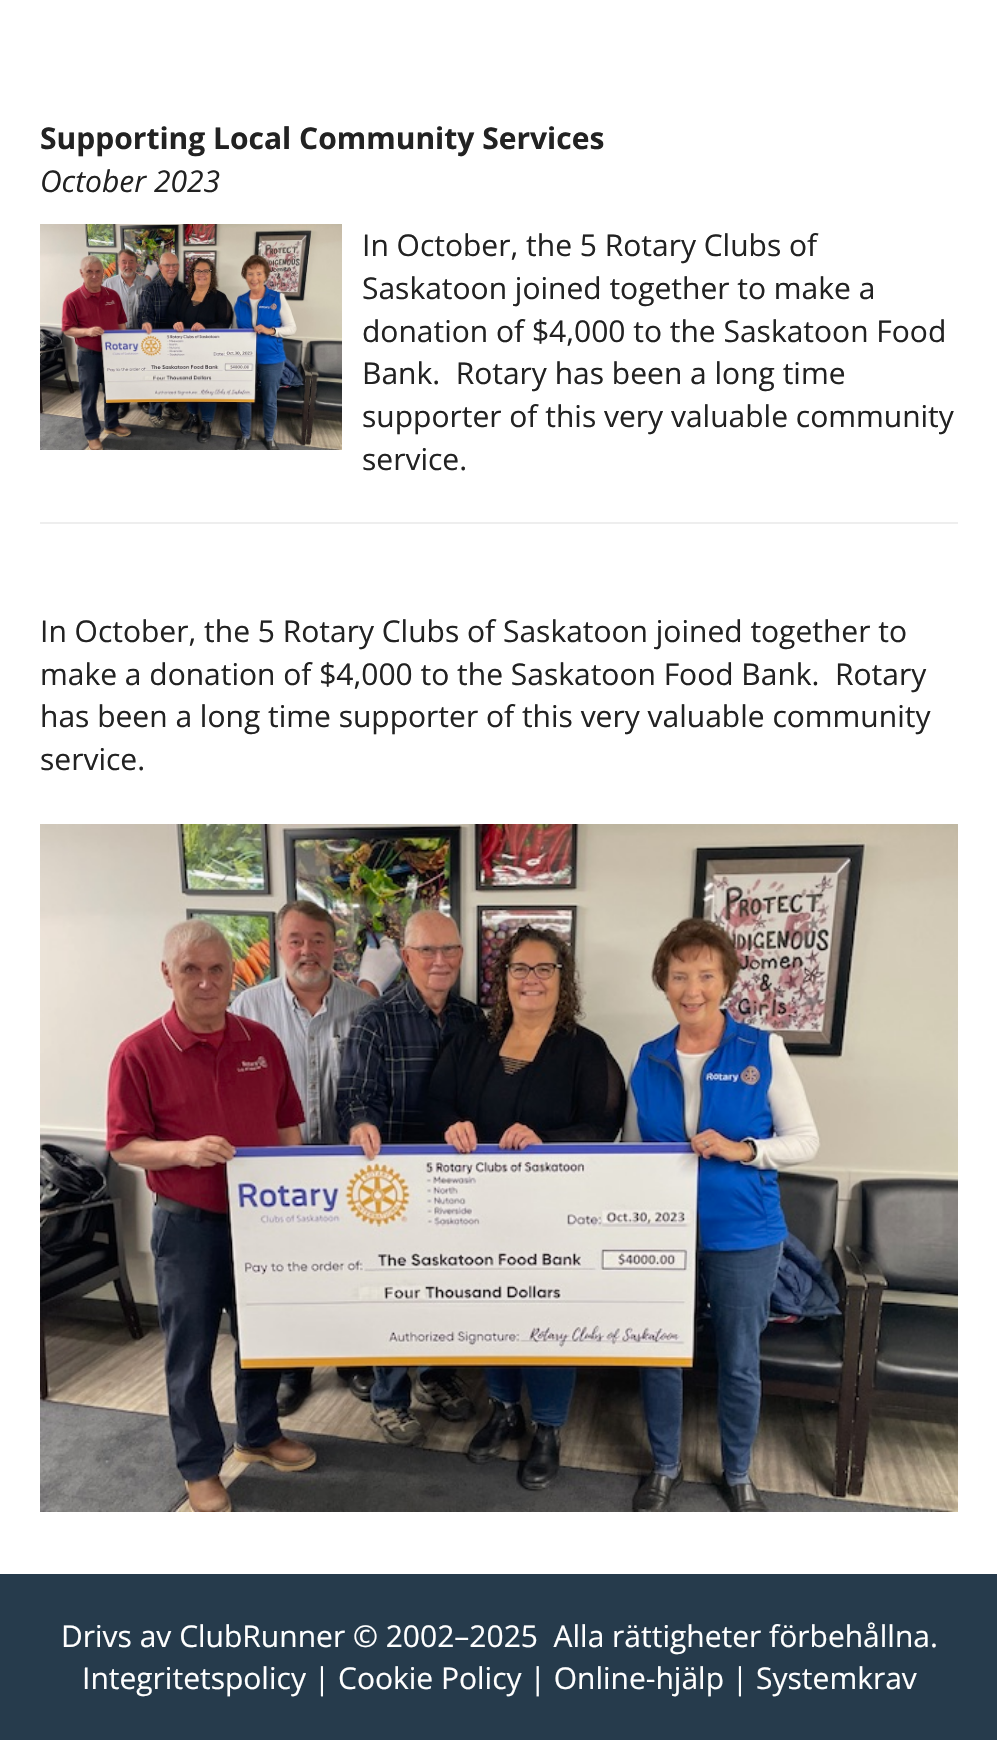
void draw(SkCanvas* canvas) {
	SkPaint paint;
	paint.setAntiAlias(true);
	canvas->clear(0xffffffff);
	SkFont f1(fontMgr->matchFamilyStyle("Open Sans", SkFontStyle::Bold()), 30);
	f1.setSubpixel(true);
	paint.setColor(0xff222222);
	canvas->drawString("Supporting Local Community Services", 40, 149, f1, paint);
	SkFont f2(fontMgr->matchFamilyStyle("Open Sans", SkFontStyle::Italic()), 30);
	f2.setSubpixel(true);
	canvas->drawString("October 2023", 40, 192, f2, paint);
	canvas->drawImageRect(SkImages::DeferredFromEncodedData(SkData::MakeFromFileName("img1.png")), SkRect::MakeXYWH(40, 224, 302, 226), SkSamplingOptions());
	SkFont f3(fontMgr->matchFamilyStyle("Open Sans", SkFontStyle::Normal()), 30);
	f3.setSubpixel(true);
	canvas->drawString("In October, the 5 Rotary Clubs of", 362, 256, f3, paint);
	canvas->drawString("Saskatoon joined together to make a", 362, 299, f3, paint);
	canvas->drawString("donation of $4,000 to the Saskatoon Food", 362, 342, f3, paint);
	canvas->drawString("Bank.  Rotary has been a long time", 362, 384, f3, paint);
	canvas->drawString("supporter of this very valuable community", 362, 427, f3, paint);
	canvas->drawString("service.", 362, 470, f3, paint);
	paint.setColor(0xffeeeeee);
	canvas->drawRect(SkRect::MakeXYWH(40, 522, 918, 2), paint);
	paint.setColor(0xff222222);
	canvas->drawString("In October, the 5 Rotary Clubs of Saskatoon joined together to", 40, 642, f3, paint);
	canvas->drawString("make a donation of $4,000 to the Saskatoon Food Bank.  Rotary", 40, 685, f3, paint);
	canvas->drawString("has been a long time supporter of this very valuable community", 40, 727, f3, paint);
	canvas->drawString("service.", 40, 770, f3, paint);
	canvas->drawImageRect(SkImages::DeferredFromEncodedData(SkData::MakeFromFileName("img2.png")), SkRect::MakeXYWH(40, 824, 918, 688), SkSamplingOptions());
	paint.setColor(0xff263b4c);
	canvas->drawRect(SkRect::MakeXYWH(0, 1574, 997, 166), paint);
	paint.setColor(0xffffffff);
	canvas->drawString("Drivs av ClubRunner © 2002–2025  Alla rättigheter förbehållna.", 61, 1647, f3, paint);
	canvas->drawString("Integritetspolicy | Cookie Policy | Online-hjälp | Systemkrav", 82, 1689, f3, paint);
}
